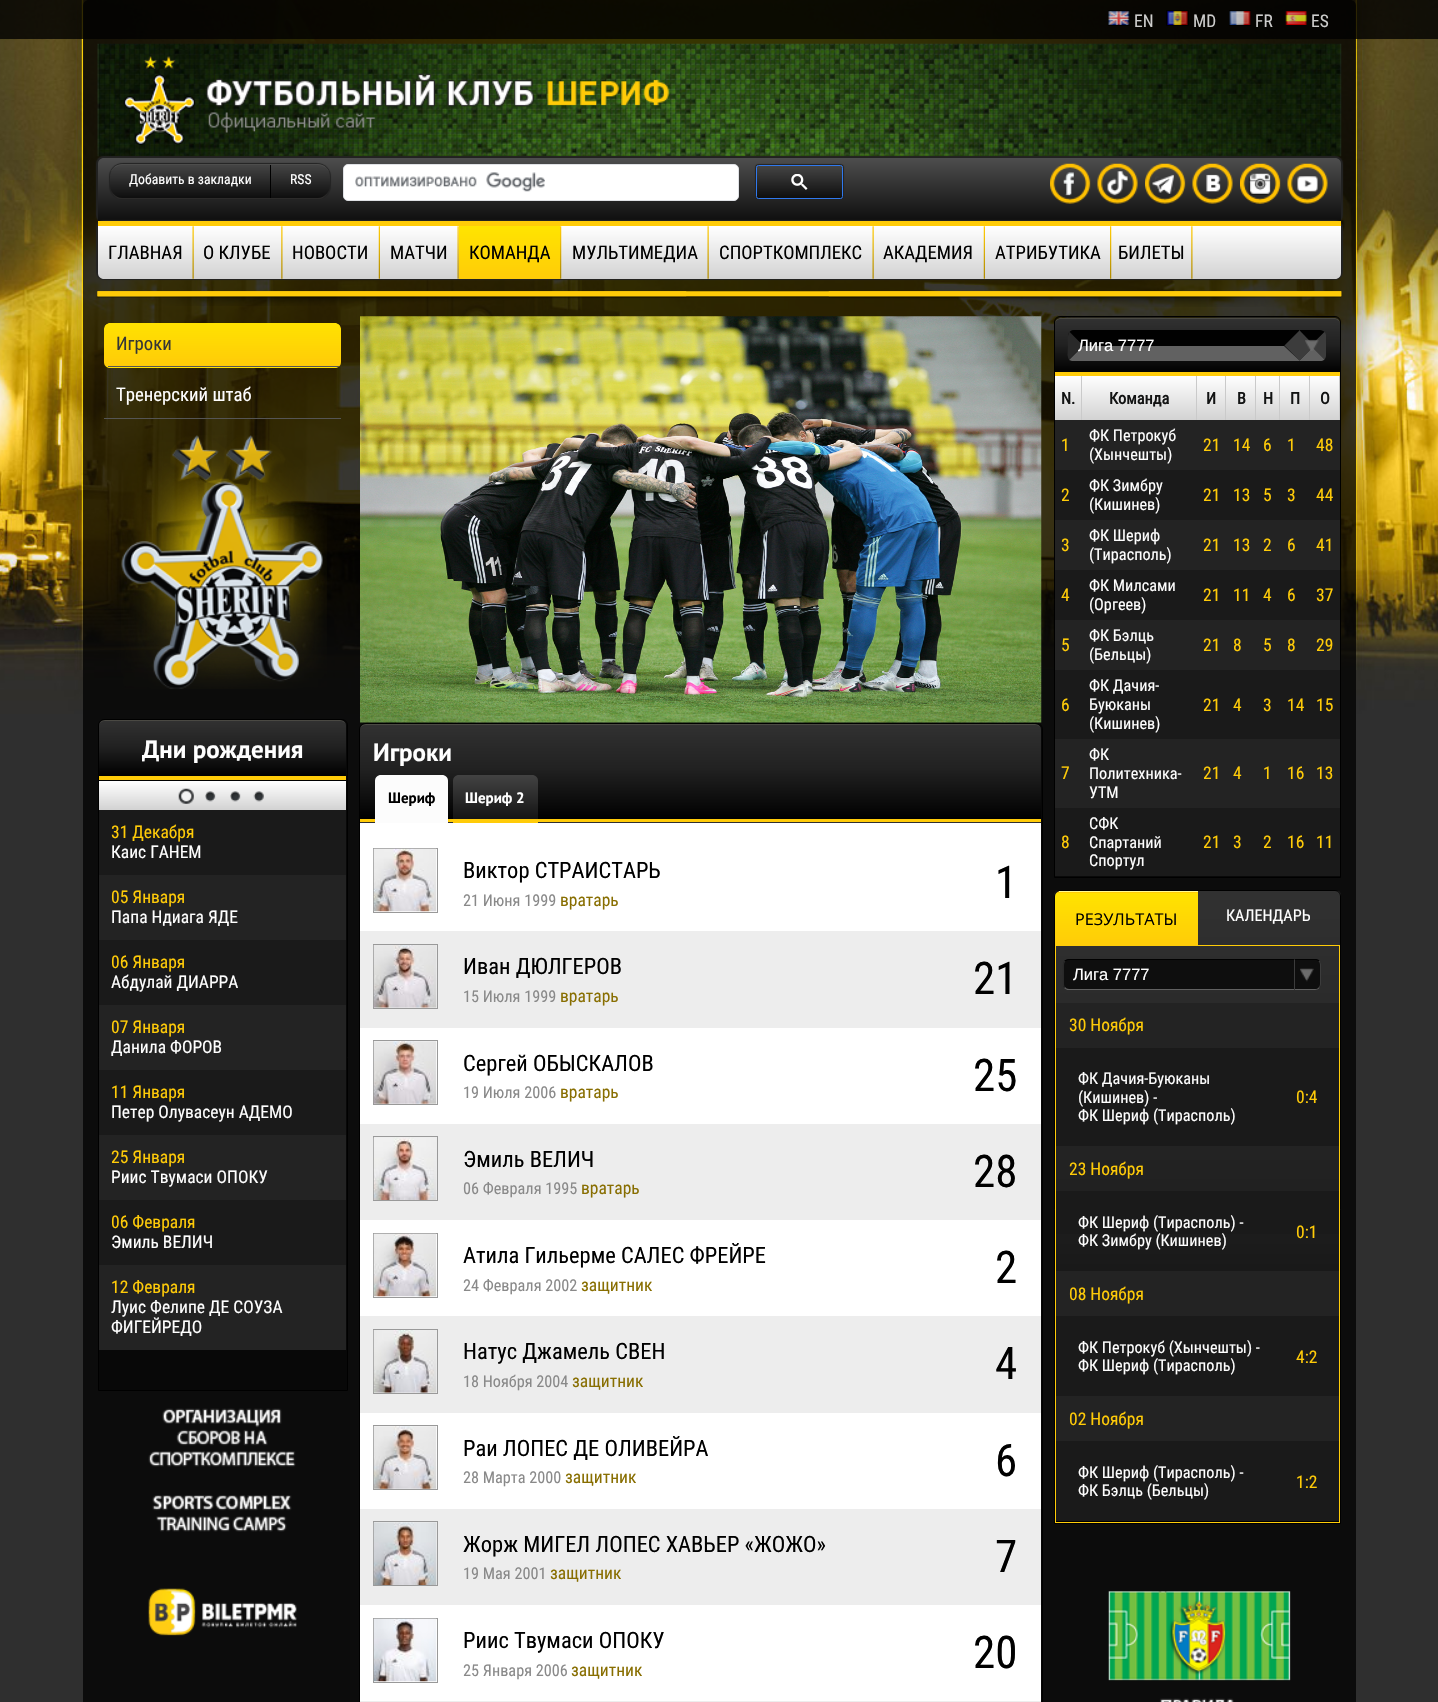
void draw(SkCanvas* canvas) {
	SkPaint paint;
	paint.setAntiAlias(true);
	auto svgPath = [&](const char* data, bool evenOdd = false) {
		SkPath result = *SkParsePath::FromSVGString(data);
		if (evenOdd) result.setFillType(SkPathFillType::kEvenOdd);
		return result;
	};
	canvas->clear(0xff2f2f2f);
	canvas->drawImageRect(SkImages::DeferredFromEncodedData(SkData::MakeFromFileName("img1.png")), SkRect::MakeXYWH(0, 0, 1438, 714), SkSamplingOptions());
	paint.setColor(0xbf000000);
	canvas->drawPath(svgPath("M89 0H1350C1353.5 0 1356 2.5 1356 6V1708H83V6C83 2.5 85.5 0 89 0Z"), paint);
	paint.setColor(0xcc000000);
	canvas->drawRect(SkRect::MakeXYWH(0, 0, 1438, 39), paint);
	paint.setStroke(true);
	paint.setStrokeWidth(1);
	paint.setColor(0xff010100);
	canvas->drawRect(SkRect::MakeXYWH(1108.5, 10.5, 21, 15), paint);
	canvas->drawImageRect(SkImages::DeferredFromEncodedData(SkData::MakeFromFileName("img2.png")), SkRect::MakeXYWH(1108, 11, 22, 14), SkSamplingOptions());
	SkFont f1(fontMgr->matchFamilyStyle("Roboto Condensed", SkFontStyle::Normal()), 17.5);
	f1.setSubpixel(true);
	paint.setStroke(false);
	paint.setColor(0xffcdcdcc);
	canvas->drawString("EN", 1134, 27, f1, paint);
	paint.setStroke(true);
	paint.setColor(0xff010100);
	canvas->drawRect(SkRect::MakeXYWH(1166.5, 10.5, 22, 15), paint);
	canvas->drawImageRect(SkImages::DeferredFromEncodedData(SkData::MakeFromFileName("img3.png")), SkRect::MakeXYWH(1167, 11, 21, 14), SkSamplingOptions());
	paint.setStroke(false);
	paint.setColor(0xffcdcdcc);
	canvas->drawString("MD", 1193, 27, f1, paint);
	paint.setStroke(true);
	paint.setColor(0xff010100);
	canvas->drawRect(SkRect::MakeXYWH(1229.5, 10.5, 21, 15), paint);
	canvas->drawImageRect(SkImages::DeferredFromEncodedData(SkData::MakeFromFileName("img4.png")), SkRect::MakeXYWH(1229, 11, 22, 14), SkSamplingOptions());
	paint.setStroke(false);
	paint.setColor(0xffcdcdcc);
	canvas->drawString("FR", 1255, 27, f1, paint);
	canvas->drawImageRect(SkImages::DeferredFromEncodedData(SkData::MakeFromFileName("img5.png")), SkRect::MakeXYWH(1285, 11, 22, 14), SkSamplingOptions());
	canvas->drawString("ES", 1311, 27, f1, paint);
	canvas->drawImageRect(SkImages::DeferredFromEncodedData(SkData::MakeFromFileName("img6.png")), SkRect::MakeXYWH(97, 43, 1245, 114), SkSamplingOptions());
	canvas->drawImageRect(SkImages::DeferredFromEncodedData(SkData::MakeFromFileName("img7.png")), SkRect::MakeXYWH(123, 56, 546, 89), SkSamplingOptions());
	paint.setColor(0xff222222);
	paint.setMaskFilter(SkMaskFilter::MakeBlur(kNormal_SkBlurStyle, 0.5));
	canvas->drawRoundRect(SkRect::MakeXYWH(96, 156, 1247, 67), 8, 8, paint);
	paint.setMaskFilter(nullptr);
	{
		const SkColor colors[] = {0xff4f4f4f, 0xff0e0e0e};
		const float stops[] = {0, 1};
		const SkPoint ends[] = {{719, 157}, {719, 221}};
		paint.setShader(SkGradientShader::MakeLinear(ends, colors, stops, 2, SkTileMode::kClamp));
		paint.setAlpha(255);
	}
	canvas->drawPath(svgPath("M104 158H1335C1338.5 158 1341 160.5 1341 164V221H98V164C98 160.5 100.5 158 104 158Z"), paint);
	paint.setShader(nullptr);
	paint.setColor(0xff222222);
	paint.setMaskFilter(SkMaskFilter::MakeBlur(kNormal_SkBlurStyle, 0.5));
	canvas->drawRoundRect(SkRect::MakeXYWH(109, 163, 222, 37), 14, 14, paint);
	paint.setMaskFilter(nullptr);
	canvas->save();
	canvas->clipPath(svgPath("M123 164H317C324 164 330 170 330 177V186C330 193 324 199 317 199H123C116 199 110 193 110 186V177C110 170 116 164 123 164Z"), true);
	{
		const SkColor colors[] = {0xff444444, 0xff0e0e0e};
		const float stops[] = {0, 1};
		const SkPoint ends[] = {{220, 165}, {220, 198}};
		paint.setShader(SkGradientShader::MakeLinear(ends, colors, stops, 2, SkTileMode::kClamp));
		paint.setAlpha(255);
	}
	canvas->drawRect(SkRect::MakeXYWH(110, 165, 220, 33), paint);
	canvas->restore();
	paint.setShader(nullptr);
	paint.setColor(0xff4d4d4c);
	canvas->drawPath(svgPath("M122 164C116 164 110 169 110 176C110 170 116 165 122 165H318C324 165 330 170 330 176C330 169 324 164 318 164Z"), paint);
	paint.setColor(0xff2c2b2a);
	canvas->drawPath(svgPath("M320 199C325 198 330 192 330 186C330 192 324 198 318 198H122C116 198 110 192 110 186C110 192 115 198 120 199Z"), paint);
	SkFont f2(fontMgr->matchFamilyStyle("Roboto Condensed", SkFontStyle::Normal()), 13.75);
	f2.setSubpixel(true);
	paint.setColor(0xffffffff);
	canvas->drawString("Добавить в закладки", 129, 184, f2, paint);
	paint.setColor(0xff000000);
	canvas->drawRect(SkRect::MakeXYWH(270, 165, 1, 33), paint);
	paint.setColor(0xffffffff);
	canvas->drawString("RSS", 290, 184, f2, paint);
	canvas->drawRoundRect(SkRect::MakeXYWH(343.5, 164.5, 395, 36), 4.5, 4.5, paint);
	paint.setStroke(true);
	paint.setColor(0xffdfe1e5);
	canvas->drawRoundRect(SkRect::MakeXYWH(343.5, 164.5, 395, 36), 4.5, 4.5, paint);
	canvas->drawImageRect(SkImages::DeferredFromEncodedData(SkData::MakeFromFileName("img8.png")), SkRect::MakeXYWH(355, 172, 190, 20), SkSamplingOptions());
	paint.setStroke(false);
	paint.setColor(0xff222222);
	paint.setMaskFilter(SkMaskFilter::MakeBlur(kNormal_SkBlurStyle, 0.5));
	canvas->drawRoundRect(SkRect::MakeXYWH(755, 164, 89, 36), 4, 4, paint);
	paint.setMaskFilter(nullptr);
	canvas->save();
	canvas->clipPath(svgPath("M758.5 165H840.5C842 165 843 166 843 167.5V196.5C843 198 842 199 840.5 199H758.5C757 199 756 198 756 196.5V167.5C756 166 757 165 758.5 165Z"), true);
	{
		const SkColor colors[] = {0xff444444, 0xff0e0e0e};
		const float stops[] = {0, 1};
		const SkPoint ends[] = {{799, 166}, {799, 198}};
		paint.setShader(SkGradientShader::MakeLinear(ends, colors, stops, 2, SkTileMode::kClamp));
		paint.setAlpha(255);
	}
	canvas->drawRect(SkRect::MakeXYWH(756, 166, 87, 32), paint);
	canvas->restore();
	paint.setStroke(true);
	paint.setShader(nullptr);
	paint.setColor(0xff3079ed);
	canvas->drawRoundRect(SkRect::MakeXYWH(756.5, 165.5, 86, 33), 2, 2, paint);
	canvas->drawImageRect(SkImages::DeferredFromEncodedData(SkData::MakeFromFileName("img9.png")), SkRect::MakeXYWH(791, 174, 17, 16), SkSamplingOptions());
	canvas->drawImageRect(SkImages::DeferredFromEncodedData(SkData::MakeFromFileName("img10.png")), SkRect::MakeXYWH(1050, 163, 41, 41), SkSamplingOptions());
	canvas->drawImageRect(SkImages::DeferredFromEncodedData(SkData::MakeFromFileName("img11.png")), SkRect::MakeXYWH(1097, 163, 41, 41), SkSamplingOptions());
	canvas->drawImageRect(SkImages::DeferredFromEncodedData(SkData::MakeFromFileName("img12.png")), SkRect::MakeXYWH(1145, 163, 41, 41), SkSamplingOptions());
	canvas->drawImageRect(SkImages::DeferredFromEncodedData(SkData::MakeFromFileName("img13.png")), SkRect::MakeXYWH(1192, 163, 41, 41), SkSamplingOptions());
	canvas->drawImageRect(SkImages::DeferredFromEncodedData(SkData::MakeFromFileName("img14.png")), SkRect::MakeXYWH(1240, 163, 41, 41), SkSamplingOptions());
	canvas->drawImageRect(SkImages::DeferredFromEncodedData(SkData::MakeFromFileName("img15.png")), SkRect::MakeXYWH(1287, 163, 41, 41), SkSamplingOptions());
	paint.setStroke(false);
	paint.setColor(0xff222222);
	paint.setMaskFilter(SkMaskFilter::MakeBlur(kNormal_SkBlurStyle, 0.5));
	canvas->drawRoundRect(SkRect::MakeXYWH(96, 220, 1247, 60), 8, 8, paint);
	paint.setMaskFilter(nullptr);
	{
		const SkColor colors[] = {0xffffffff, 0xffd2d2d2};
		const float stops[] = {0, 1};
		const SkPoint ends[] = {{719, 226}, {719, 279}};
		paint.setShader(SkGradientShader::MakeLinear(ends, colors, stops, 2, SkTileMode::kClamp));
		paint.setAlpha(255);
	}
	canvas->drawPath(svgPath("M98 226H1341V273C1341 276.5 1338.5 279 1335 279H104C100.5 279 98 276.5 98 273Z"), paint);
	paint.setShader(nullptr);
	paint.setColor(0xffffcb08);
	canvas->drawRect(SkRect::MakeXYWH(98, 221, 1243, 5), paint);
	canvas->drawImageRect(SkImages::DeferredFromEncodedData(SkData::MakeFromFileName("img16.png")), SkRect::MakeXYWH(192, 226, 2, 53), SkSamplingOptions());
	SkFont f3(fontMgr->matchFamilyStyle("Roboto Condensed", SkFontStyle::Normal()), 18.75);
	f3.setSubpixel(true);
	paint.setColor(0xff000000);
	canvas->drawString("ГЛАВНАЯ", 108, 259, f3, paint);
	canvas->drawImageRect(SkImages::DeferredFromEncodedData(SkData::MakeFromFileName("img17.png")), SkRect::MakeXYWH(281, 226, 2, 53), SkSamplingOptions());
	canvas->drawString("О КЛУБЕ", 203, 259, f3, paint);
	canvas->drawImageRect(SkImages::DeferredFromEncodedData(SkData::MakeFromFileName("img18.png")), SkRect::MakeXYWH(378, 226, 2, 53), SkSamplingOptions());
	canvas->drawString("НОВОСТИ", 292, 259, f3, paint);
	canvas->drawImageRect(SkImages::DeferredFromEncodedData(SkData::MakeFromFileName("img16.png")), SkRect::MakeXYWH(457, 226, 2, 53), SkSamplingOptions());
	canvas->drawString("МАТЧИ", 390, 259, f3, paint);
	canvas->drawImageRect(SkImages::DeferredFromEncodedData(SkData::MakeFromFileName("img19.png")), SkRect::MakeXYWH(560, 226, 2, 53), SkSamplingOptions());
	{
		const SkColor colors[] = {0xffffe400, 0xffffcc08};
		const float stops[] = {0, 1};
		const SkPoint ends[] = {{509, 226}, {509, 279}};
		paint.setShader(SkGradientShader::MakeLinear(ends, colors, stops, 2, SkTileMode::kClamp));
		paint.setAlpha(255);
	}
	canvas->drawRect(SkRect::MakeXYWH(459, 226, 101, 53), paint);
	paint.setShader(nullptr);
	paint.setColor(0xff000000);
	canvas->drawString("КОМАНДА", 469, 259, f3, paint);
	canvas->drawImageRect(SkImages::DeferredFromEncodedData(SkData::MakeFromFileName("img16.png")), SkRect::MakeXYWH(707, 226, 2, 53), SkSamplingOptions());
	canvas->drawString("МУЛЬТИМЕДИА", 572, 259, f3, paint);
	canvas->drawImageRect(SkImages::DeferredFromEncodedData(SkData::MakeFromFileName("img16.png")), SkRect::MakeXYWH(872, 226, 2, 53), SkSamplingOptions());
	canvas->drawString("СПОРТКОМПЛЕКС", 719, 259, f3, paint);
	canvas->drawImageRect(SkImages::DeferredFromEncodedData(SkData::MakeFromFileName("img18.png")), SkRect::MakeXYWH(983, 226, 2, 53), SkSamplingOptions());
	canvas->drawString("АКАДЕМИЯ", 883, 259, f3, paint);
	canvas->drawImageRect(SkImages::DeferredFromEncodedData(SkData::MakeFromFileName("img19.png")), SkRect::MakeXYWH(1110, 226, 2, 53), SkSamplingOptions());
	canvas->drawString("АТРИБУТИКА", 995, 259, f3, paint);
	canvas->drawImageRect(SkImages::DeferredFromEncodedData(SkData::MakeFromFileName("img17.png")), SkRect::MakeXYWH(1191, 226, 2, 53), SkSamplingOptions());
	canvas->drawString("БИЛЕТЫ", 1118, 259, f3, paint);
	canvas->drawImageRect(SkImages::DeferredFromEncodedData(SkData::MakeFromFileName("img20.png")), SkRect::MakeXYWH(97, 291, 1245, 7), SkSamplingOptions());
	canvas->drawImageRect(SkImages::DeferredFromEncodedData(SkData::MakeFromFileName("img21.png")), SkRect::MakeXYWH(97, 291, 590, 15), SkSamplingOptions());
	canvas->drawImageRect(SkImages::DeferredFromEncodedData(SkData::MakeFromFileName("img22.png")), SkRect::MakeXYWH(828, 291, 514, 16), SkSamplingOptions());
	canvas->drawImageRect(SkImages::DeferredFromEncodedData(SkData::MakeFromFileName("img23.png")), SkRect::MakeXYWH(121, 435, 206, 254), SkSamplingOptions());
	canvas->save();
	canvas->clipPath(svgPath("M110 323H335C338.5 323 341 325.5 341 329V362C341 365.5 338.5 368 335 368H110C106.5 368 104 365.5 104 362V329C104 325.5 106.5 323 110 323Z"), true);
	{
		const SkColor colors[] = {0xffffe201, 0xffffcb08};
		const float stops[] = {0, 1};
		const SkPoint ends[] = {{223, 323}, {223, 366}};
		paint.setShader(SkGradientShader::MakeLinear(ends, colors, stops, 2, SkTileMode::kClamp));
		paint.setAlpha(255);
	}
	canvas->drawPath(svgPath("M110 323H335C338.5 323 341 325.5 341 329V366H104V329C104 325.5 106.5 323 110 323Z"), paint);
	{
		const SkColor colors[] = {0xffffe201, 0xffffcb08};
		const float stops[] = {0, 1};
		const SkPoint ends[] = {{223, 366}, {223, 410}};
		paint.setShader(SkGradientShader::MakeLinear(ends, colors, stops, 2, SkTileMode::kClamp));
		paint.setAlpha(255);
	}
	canvas->drawRect(SkRect::MakeXYWH(104, 366, 237, 2), paint);
	canvas->restore();
	paint.setShader(nullptr);
	paint.setColor(0xff555555);
	canvas->drawRect(SkRect::MakeXYWH(108, 366, 231, 1), paint);
	paint.setColor(0xff353636);
	canvas->drawString("Игроки", 116, 350, f3, paint);
	paint.setColor(0xff555555);
	canvas->drawRect(SkRect::MakeXYWH(104, 418, 237, 1), paint);
	paint.setColor(0xffffffff);
	canvas->drawString("Тренерский штаб", 116, 401, f3, paint);
	paint.setColor(0xff080808);
	canvas->drawPath(svgPath("M104 719.5H342C345 719.5 347.5 722 347.5 725V1390.5H98.5V725C98.5 722 101 719.5 104 719.5Z"), paint);
	paint.setStroke(true);
	paint.setColor(0xff000000);
	canvas->drawPath(svgPath("M104 719.5H342C345 719.5 347.5 722 347.5 725V1390.5H98.5V725C98.5 722 101 719.5 104 719.5Z"), paint);
	canvas->save();
	canvas->clipPath(svgPath("M105 720H340C343.5 720 346 722.5 346 726V780H99V726C99 722.5 101.5 720 105 720Z"), true);
	paint.setStroke(false);
	{
		const SkColor colors[] = {0xff313131, 0xff212121, 0xff000000};
		const float stops[] = {0, 0.47, 1};
		const SkPoint ends[] = {{223, 721}, {223, 776}};
		paint.setShader(SkGradientShader::MakeLinear(ends, colors, stops, 3, SkTileMode::kClamp));
		paint.setAlpha(255);
	}
	canvas->drawRect(SkRect::MakeXYWH(99, 721, 247, 55), paint);
	canvas->restore();
	paint.setShader(nullptr);
	paint.setColor(0xff4a4943);
	canvas->drawPath(svgPath("M105 720C102 720 99 723 99 726C99 723 102 721 105 721H340C343 721 346 723 346 726C346 723 343 720 340 720Z"), paint);
	paint.setColor(0xffffcb08);
	canvas->drawRect(SkRect::MakeXYWH(99, 776, 247, 4), paint);
	SkFont f4(fontMgr->matchFamilyStyle("PT Sans", SkFontStyle::Bold()), 25);
	f4.setSubpixel(true);
	paint.setColor(0xffffffff);
	canvas->drawString("Дни рождения", 142, 758, f4, paint);
	{
		const SkColor colors[] = {0xffffffff, 0xffd2d2d2};
		const float stops[] = {0, 1};
		const SkPoint ends[] = {{223, 781}, {223, 810}};
		paint.setShader(SkGradientShader::MakeLinear(ends, colors, stops, 2, SkTileMode::kClamp));
		paint.setAlpha(255);
	}
	canvas->drawRect(SkRect::MakeXYWH(99, 781, 247, 29), paint);
	paint.setShader(nullptr);
	paint.setColor(0xff000000);
	canvas->drawRect(SkRect::MakeXYWH(99, 780, 247, 1), paint);
	canvas->drawImageRect(SkImages::DeferredFromEncodedData(SkData::MakeFromFileName("img24.png")), SkRect::MakeXYWH(178, 788, 16, 16), SkSamplingOptions());
	canvas->drawImageRect(SkImages::DeferredFromEncodedData(SkData::MakeFromFileName("img25.png")), SkRect::MakeXYWH(205, 791, 11, 11), SkSamplingOptions());
	canvas->drawImageRect(SkImages::DeferredFromEncodedData(SkData::MakeFromFileName("img25.png")), SkRect::MakeXYWH(230, 791, 11, 11), SkSamplingOptions());
	canvas->drawImageRect(SkImages::DeferredFromEncodedData(SkData::MakeFromFileName("img26.png")), SkRect::MakeXYWH(253, 791, 11, 11), SkSamplingOptions());
	paint.setColor(0xff1a1a1a);
	canvas->drawRect(SkRect::MakeXYWH(99, 810, 247, 65), paint);
	paint.setColor(0xffffcb08);
	canvas->drawString("31 Декабря", 111, 838, f1, paint);
	paint.setColor(0xffffffff);
	canvas->drawString("Каис ГАНЕМ", 111, 858, f1, paint);
	paint.setColor(0xff232323);
	canvas->drawRect(SkRect::MakeXYWH(99, 875, 247, 65), paint);
	paint.setColor(0xffffcb08);
	canvas->drawString("05 Января", 111, 903, f1, paint);
	paint.setColor(0xffffffff);
	canvas->drawString("Папа Ндиага ЯДЕ", 111, 923, f1, paint);
	paint.setColor(0xff1a1a1a);
	canvas->drawRect(SkRect::MakeXYWH(99, 940, 247, 65), paint);
	paint.setColor(0xffffcb08);
	canvas->drawString("06 Января", 111, 968, f1, paint);
	paint.setColor(0xffffffff);
	canvas->drawString("Абдулай ДИАРРА", 111, 988, f1, paint);
	paint.setColor(0xff232323);
	canvas->drawRect(SkRect::MakeXYWH(99, 1005, 247, 65), paint);
	paint.setColor(0xffffcb08);
	canvas->drawString("07 Января", 111, 1033, f1, paint);
	paint.setColor(0xffffffff);
	canvas->drawString("Данила ФОРОВ", 111, 1053, f1, paint);
	paint.setColor(0xff1a1a1a);
	canvas->drawRect(SkRect::MakeXYWH(99, 1070, 247, 65), paint);
	paint.setColor(0xffffcb08);
	canvas->drawString("11 Января", 111, 1098, f1, paint);
	paint.setColor(0xffffffff);
	canvas->drawString("Петер Олувасеун АДЕМО", 111, 1118, f1, paint);
	paint.setColor(0xff232323);
	canvas->drawRect(SkRect::MakeXYWH(99, 1135, 247, 65), paint);
	paint.setColor(0xffffcb08);
	canvas->drawString("25 Января", 111, 1163, f1, paint);
	paint.setColor(0xffffffff);
	canvas->drawString("Риис Твумаси ОПОКУ", 111, 1183, f1, paint);
	paint.setColor(0xff1a1a1a);
	canvas->drawRect(SkRect::MakeXYWH(99, 1200, 247, 65), paint);
	paint.setColor(0xffffcb08);
	canvas->drawString("06 Февраля", 111, 1228, f1, paint);
	paint.setColor(0xffffffff);
	canvas->drawString("Эмиль ВЕЛИЧ", 111, 1248, f1, paint);
	paint.setColor(0xff232323);
	canvas->drawRect(SkRect::MakeXYWH(99, 1265, 247, 85), paint);
	paint.setColor(0xffffcb08);
	canvas->drawString("12 Февраля", 111, 1293, f1, paint);
	paint.setColor(0xffffffff);
	canvas->drawString("Луис Фелипе ДЕ СОУЗА", 111, 1313, f1, paint);
	canvas->drawString("ФИГЕЙРЕДО", 111, 1333, f1, paint);
	canvas->drawImageRect(SkImages::DeferredFromEncodedData(SkData::MakeFromFileName("img27.png")), SkRect::MakeXYWH(148, 1408, 148, 59), SkSamplingOptions());
	canvas->drawImageRect(SkImages::DeferredFromEncodedData(SkData::MakeFromFileName("img28.png")), SkRect::MakeXYWH(152, 1495, 140, 37), SkSamplingOptions());
	canvas->drawImageRect(SkImages::DeferredFromEncodedData(SkData::MakeFromFileName("img29.png")), SkRect::MakeXYWH(148, 1588, 149, 48), SkSamplingOptions());
	canvas->drawImageRect(SkImages::DeferredFromEncodedData(SkData::MakeFromFileName("img30.png")), SkRect::MakeXYWH(360, 316, 682, 407), SkSamplingOptions());
	paint.setColor(0xff080808);
	canvas->drawPath(svgPath("M365 723.5H1037C1040 723.5 1042.5 726 1042.5 729V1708.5H359.5V729C359.5 726 362 723.5 365 723.5Z"), paint);
	paint.setStroke(true);
	paint.setColor(0xff000000);
	canvas->drawPath(svgPath("M365 723.5H1037C1040 723.5 1042.5 726 1042.5 729V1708.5H359.5V729C359.5 726 362 723.5 365 723.5Z"), paint);
	canvas->save();
	canvas->clipPath(svgPath("M366 724H1035C1038.5 724 1041 726.5 1041 730V823H360V730C360 726.5 362.5 724 366 724Z"), true);
	paint.setStroke(false);
	{
		const SkColor colors[] = {0xff313131, 0xff212121, 0xff000000};
		const float stops[] = {0, 0.47, 1};
		const SkPoint ends[] = {{701, 725}, {701, 819}};
		paint.setShader(SkGradientShader::MakeLinear(ends, colors, stops, 3, SkTileMode::kClamp));
		paint.setAlpha(255);
	}
	canvas->drawRect(SkRect::MakeXYWH(360, 725, 681, 94), paint);
	canvas->restore();
	{
		const SkColor colors[] = {0xff313131, 0xff212121, 0xff000000};
		const float stops[] = {0, 0.47, 1};
		const SkPoint ends[] = {{701, 819}, {701, 913}};
		paint.setShader(SkGradientShader::MakeLinear(ends, colors, stops, 3, SkTileMode::kClamp));
		paint.setAlpha(255);
	}
	canvas->drawRect(SkRect::MakeXYWH(360, 822, 681, 1), paint);
	paint.setShader(nullptr);
	paint.setColor(0xff4a4943);
	canvas->drawPath(svgPath("M366 724H1035C1038 724 1041 727 1041 730C1041 727 1038 725 1035 725H366C363 725 360 727 360 730C360 727 363 724 366 724Z"), paint);
	paint.setColor(0xffffcb08);
	canvas->drawRect(SkRect::MakeXYWH(360, 819, 681, 3), paint);
	paint.setColor(0xffffffff);
	canvas->drawString("Игроки", 373, 761, f4, paint);
	paint.setColor(0xfffcfcfc);
	canvas->drawRect(SkRect::MakeXYWH(375, 819, 73, 4), paint);
	canvas->drawPath(svgPath("M381 775H442C445.5 775 448 777.5 448 781V819H375V781C375 777.5 377.5 775 381 775Z"), paint);
	SkFont f5(fontMgr->matchFamilyStyle("PT Sans", SkFontStyle::Bold()), 15);
	f5.setSubpixel(true);
	paint.setColor(0xff000000);
	canvas->drawString("Шериф", 388, 803, f5, paint);
	paint.setColor(0xffffcb08);
	canvas->drawRect(SkRect::MakeXYWH(453, 822, 85, 1), paint);
	{
		const SkColor colors[] = {0xff434343, 0xff141414};
		const float stops[] = {0, 1};
		const SkPoint ends[] = {{495, 775}, {495, 819}};
		paint.setShader(SkGradientShader::MakeLinear(ends, colors, stops, 2, SkTileMode::kClamp));
		paint.setAlpha(255);
	}
	canvas->drawPath(svgPath("M459 775H532C535.5 775 538 777.5 538 781V819H453V781C453 777.5 455.5 775 459 775Z"), paint);
	paint.setShader(nullptr);
	paint.setColor(0xffffffff);
	canvas->drawString("Шериф 2", 465, 803, f5, paint);
	canvas->drawRect(SkRect::MakeXYWH(360, 823, 681, 108), paint);
	paint.setStroke(true);
	paint.setColor(0xff999999);
	canvas->drawRect(SkRect::MakeXYWH(373.5, 848.5, 64, 64), paint);
	canvas->drawImageRect(SkImages::DeferredFromEncodedData(SkData::MakeFromFileName("img31.png")), SkRect::MakeXYWH(373, 848, 64, 64), SkSamplingOptions());
	SkFont f6(fontMgr->matchFamilyStyle("Roboto Condensed", SkFontStyle::Normal()), 22.5);
	f6.setSubpixel(true);
	paint.setStroke(false);
	paint.setColor(0xff000000);
	canvas->drawString("Виктор СТРАИСТАРЬ", 463, 878, f6, paint);
	SkFont f7(fontMgr->matchFamilyStyle("Roboto Condensed", SkFontStyle::Normal()), 16.25);
	f7.setSubpixel(true);
	paint.setColor(0xff898989);
	canvas->drawString("21 Июня 1999", 463, 906, f7, paint);
	paint.setColor(0xff886e01);
	canvas->drawString("вратарь", 560, 906, f1, paint);
	SkFont f8(fontMgr->matchFamilyStyle("Roboto Condensed", SkFontStyle::Normal()), 45);
	f8.setSubpixel(true);
	paint.setColor(0xff000000);
	canvas->drawString("1", 995, 898, f8, paint);
	paint.setColor(0xffededed);
	canvas->drawRect(SkRect::MakeXYWH(360, 931, 681, 97), paint);
	paint.setStroke(true);
	paint.setColor(0xff999999);
	canvas->drawRect(SkRect::MakeXYWH(373.5, 944.5, 64, 64), paint);
	canvas->drawImageRect(SkImages::DeferredFromEncodedData(SkData::MakeFromFileName("img32.png")), SkRect::MakeXYWH(373, 945, 64, 63), SkSamplingOptions());
	paint.setStroke(false);
	paint.setColor(0xff000000);
	canvas->drawString("Иван ДЮЛГЕРОВ", 463, 974, f6, paint);
	paint.setColor(0xff898989);
	canvas->drawString("15 Июля 1999", 463, 1002, f7, paint);
	paint.setColor(0xff886e01);
	canvas->drawString("вратарь", 560, 1002, f1, paint);
	paint.setColor(0xff000000);
	canvas->drawString("21", 973, 994, f8, paint);
	paint.setColor(0xffffffff);
	canvas->drawRect(SkRect::MakeXYWH(360, 1028, 681, 96), paint);
	paint.setStroke(true);
	paint.setColor(0xff999999);
	canvas->drawRect(SkRect::MakeXYWH(373.5, 1040.5, 64, 64), paint);
	canvas->drawImageRect(SkImages::DeferredFromEncodedData(SkData::MakeFromFileName("img33.png")), SkRect::MakeXYWH(373, 1041, 64, 63), SkSamplingOptions());
	paint.setStroke(false);
	paint.setColor(0xff000000);
	canvas->drawString("Сергей ОБЫСКАЛОВ", 463, 1071, f6, paint);
	paint.setColor(0xff898989);
	canvas->drawString("19 Июля 2006", 463, 1098, f7, paint);
	paint.setColor(0xff886e01);
	canvas->drawString("вратарь", 560, 1098, f1, paint);
	paint.setColor(0xff000000);
	canvas->drawString("25", 973, 1091, f8, paint);
	paint.setColor(0xffededed);
	canvas->drawRect(SkRect::MakeXYWH(360, 1124, 681, 96), paint);
	paint.setStroke(true);
	paint.setColor(0xff999999);
	canvas->drawRect(SkRect::MakeXYWH(373.5, 1136.5, 64, 64), paint);
	canvas->drawImageRect(SkImages::DeferredFromEncodedData(SkData::MakeFromFileName("img34.png")), SkRect::MakeXYWH(373, 1137, 64, 63), SkSamplingOptions());
	paint.setStroke(false);
	paint.setColor(0xff000000);
	canvas->drawString("Эмиль ВЕЛИЧ", 463, 1167, f6, paint);
	paint.setColor(0xff898989);
	canvas->drawString("06 Февраля 1995", 463, 1194, f7, paint);
	paint.setColor(0xff886e01);
	canvas->drawString("вратарь", 581, 1194, f1, paint);
	paint.setColor(0xff000000);
	canvas->drawString("28", 973, 1187, f8, paint);
	paint.setColor(0xffffffff);
	canvas->drawRect(SkRect::MakeXYWH(360, 1220, 681, 96), paint);
	paint.setStroke(true);
	paint.setColor(0xff999999);
	canvas->drawRect(SkRect::MakeXYWH(373.5, 1233.5, 64, 64), paint);
	canvas->drawImageRect(SkImages::DeferredFromEncodedData(SkData::MakeFromFileName("img35.png")), SkRect::MakeXYWH(373, 1233, 64, 64), SkSamplingOptions());
	paint.setStroke(false);
	paint.setColor(0xff000000);
	canvas->drawString("Атила Гильерме САЛЕС ФРЕЙРЕ", 463, 1263, f6, paint);
	paint.setColor(0xff898989);
	canvas->drawString("24 Февраля 2002", 463, 1291, f7, paint);
	paint.setColor(0xff886e01);
	canvas->drawString("защитник", 581, 1291, f1, paint);
	paint.setColor(0xff000000);
	canvas->drawString("2", 995, 1283, f8, paint);
	paint.setColor(0xffededed);
	canvas->drawRect(SkRect::MakeXYWH(360, 1316, 681, 97), paint);
	paint.setStroke(true);
	paint.setColor(0xff999999);
	canvas->drawRect(SkRect::MakeXYWH(373.5, 1329.5, 64, 64), paint);
	canvas->drawImageRect(SkImages::DeferredFromEncodedData(SkData::MakeFromFileName("img36.png")), SkRect::MakeXYWH(373, 1330, 64, 63), SkSamplingOptions());
	paint.setStroke(false);
	paint.setColor(0xff000000);
	canvas->drawString("Натус Джамель СВЕН", 463, 1359, f6, paint);
	paint.setColor(0xff898989);
	canvas->drawString("18 Ноября 2004", 463, 1387, f7, paint);
	paint.setColor(0xff886e01);
	canvas->drawString("защитник", 572, 1387, f1, paint);
	paint.setColor(0xff000000);
	canvas->drawString("4", 995, 1379, f8, paint);
	paint.setColor(0xffffffff);
	canvas->drawRect(SkRect::MakeXYWH(360, 1413, 681, 96), paint);
	paint.setStroke(true);
	paint.setColor(0xff999999);
	canvas->drawRect(SkRect::MakeXYWH(373.5, 1425.5, 64, 64), paint);
	canvas->drawImageRect(SkImages::DeferredFromEncodedData(SkData::MakeFromFileName("img37.png")), SkRect::MakeXYWH(373, 1426, 64, 63), SkSamplingOptions());
	paint.setStroke(false);
	paint.setColor(0xff000000);
	canvas->drawString("Раи ЛОПЕС ДЕ ОЛИВЕЙРА", 463, 1456, f6, paint);
	paint.setColor(0xff898989);
	canvas->drawString("28 Марта 2000", 463, 1483, f7, paint);
	paint.setColor(0xff886e01);
	canvas->drawString("защитник", 565, 1483, f1, paint);
	paint.setColor(0xff000000);
	canvas->drawString("6", 995, 1476, f8, paint);
	paint.setColor(0xffededed);
	canvas->drawRect(SkRect::MakeXYWH(360, 1509, 681, 96), paint);
	paint.setStroke(true);
	paint.setColor(0xff999999);
	canvas->drawRect(SkRect::MakeXYWH(373.5, 1521.5, 64, 64), paint);
	canvas->drawImageRect(SkImages::DeferredFromEncodedData(SkData::MakeFromFileName("img38.png")), SkRect::MakeXYWH(373, 1522, 64, 63), SkSamplingOptions());
	paint.setStroke(false);
	paint.setColor(0xff000000);
	canvas->drawString("Жорж МИГЕЛ ЛОПЕС ХАВЬЕР «ЖОЖО»", 463, 1552, f6, paint);
	paint.setColor(0xff898989);
	canvas->drawString("19 Мая 2001", 463, 1579, f7, paint);
	paint.setColor(0xff886e01);
	canvas->drawString("защитник", 550, 1579, f1, paint);
	paint.setColor(0xff000000);
	canvas->drawString("7", 995, 1572, f8, paint);
	paint.setColor(0xffffffff);
	canvas->drawRect(SkRect::MakeXYWH(360, 1605, 681, 96), paint);
	paint.setStroke(true);
	paint.setColor(0xff999999);
	canvas->drawRect(SkRect::MakeXYWH(373.5, 1618.5, 64, 64), paint);
	canvas->drawImageRect(SkImages::DeferredFromEncodedData(SkData::MakeFromFileName("img39.png")), SkRect::MakeXYWH(373, 1618, 64, 64), SkSamplingOptions());
	paint.setStroke(false);
	paint.setColor(0xff000000);
	canvas->drawString("Риис Твумаси ОПОКУ", 463, 1648, f6, paint);
	paint.setColor(0xff898989);
	canvas->drawString("25 Января 2006", 463, 1676, f7, paint);
	paint.setColor(0xff886e01);
	canvas->drawString("защитник", 571, 1676, f1, paint);
	paint.setColor(0xff000000);
	canvas->drawString("20", 973, 1668, f8, paint);
	paint.setColor(0xffededed);
	canvas->drawRect(SkRect::MakeXYWH(360, 1701, 681, 1), paint);
	paint.setColor(0x4d000000);
	canvas->drawPath(svgPath("M1060 316.5H1335C1338 316.5 1340.5 319 1340.5 322V877.5H1054.5V322C1054.5 319 1057 316.5 1060 316.5Z"), paint);
	paint.setStroke(true);
	paint.setColor(0xff000000);
	canvas->drawPath(svgPath("M1060 316.5H1335C1338 316.5 1340.5 319 1340.5 322V877.5H1054.5V322C1054.5 319 1057 316.5 1060 316.5Z"), paint);
	canvas->save();
	canvas->clipPath(svgPath("M1061 318H1334C1337.5 318 1340 320.5 1340 324V376H1055V324C1055 320.5 1057.5 318 1061 318Z"), true);
	paint.setStroke(false);
	{
		const SkColor colors[] = {0xff313131, 0xff212121, 0xff000000};
		const float stops[] = {0, 0.47, 1};
		const SkPoint ends[] = {{1198, 319}, {1198, 373}};
		paint.setShader(SkGradientShader::MakeLinear(ends, colors, stops, 3, SkTileMode::kClamp));
		paint.setAlpha(255);
	}
	canvas->drawRect(SkRect::MakeXYWH(1055, 319, 285, 53), paint);
	canvas->restore();
	paint.setShader(nullptr);
	paint.setColor(0xff4a4943);
	canvas->drawPath(svgPath("M1061 318H1334C1337 318 1340 320 1340 324C1340 321 1337 319 1334 319H1061C1058 319 1055 321 1055 324C1055 320 1058 318 1061 318Z"), paint);
	paint.setColor(0xffffcb08);
	canvas->drawRect(SkRect::MakeXYWH(1055, 372, 285, 4), paint);
	paint.setColor(0xff0e0e0e);
	canvas->drawPath(svgPath("M1074 330H1300V361H1074C1070.5 361 1068 358.5 1068 355V336C1068 332.5 1070.5 330 1074 330Z"), paint);
	paint.setColor(0xff010101);
	canvas->drawPath(svgPath("M1074 330H1300L1284 346H1083L1070 332C1070 331 1072 330 1074 330Z"), paint);
	paint.setColor(0xff3c3c3c);
	canvas->drawPath(svgPath("M1300 330L1284.5 345.5L1300 361Z"), paint);
	paint.setColor(0xff616161);
	canvas->drawPath(svgPath("M1300 361L1284 346H1083L1069 360L1072 361Z"), paint);
	paint.setColor(0xff292929);
	canvas->drawPath(svgPath("M1069.5 332C1068.5 333 1068.5 334.5 1068 336C1067.5 339.5 1068 343 1068 346.5L1067.5 355C1068 356.5 1068 358 1069 359.5L1083 345.5Z"), paint);
	SkFont f9(fontMgr->matchFamilyStyle("Liberation Sans", SkFontStyle::Normal()), 16.5);
	f9.setSubpixel(true);
	paint.setColor(0xffffffff);
	canvas->drawString("Лига 7777", 1078, 351, f9, paint);
	paint.setColor(0xff010101);
	canvas->drawPath(svgPath("M1299 330H1320C1322 330 1323.5 331 1324.5 332L1312.5 344Z"), paint);
	paint.setColor(0xff3c3c3c);
	canvas->drawPath(svgPath("M1324.5 332L1312.5 344V347.5L1324.5 359.5C1325.5 358 1326 357 1326 355V336C1326 334.5 1325.5 333 1324.5 332Z"), paint);
	paint.setColor(0xff616161);
	canvas->drawPath(svgPath("M1324.5 359.5L1312.5 347.5L1299 361H1320C1322 361 1323 360.5 1324.5 359.5Z"), paint);
	paint.setColor(0xff3c3c3c);
	canvas->drawPath(svgPath("M1299 330V361L1312.5 347.5V344Z"), paint);
	canvas->drawImageRect(SkImages::DeferredFromEncodedData(SkData::MakeFromFileName("img40.png")), SkRect::MakeXYWH(1305, 339, 14, 12), SkSamplingOptions());
	{
		const SkColor colors[] = {0xffffffff, 0xffd2d2d2};
		const float stops[] = {0, 1};
		const SkPoint ends[] = {{1198, 376}, {1198, 420}};
		paint.setShader(SkGradientShader::MakeLinear(ends, colors, stops, 2, SkTileMode::kClamp));
		paint.setAlpha(255);
	}
	canvas->drawRect(SkRect::MakeXYWH(1055, 376, 284, 44), paint);
	paint.setShader(nullptr);
	paint.setColor(0xffcacaca);
	canvas->drawRect(SkRect::MakeXYWH(1081, 376, 1, 44), paint);
	SkFont f10(fontMgr->matchFamilyStyle("Roboto Condensed", SkFontStyle::Bold()), 16.25);
	f10.setSubpixel(true);
	paint.setColor(0xff131414);
	canvas->drawString("N.", 1061, 404, f10, paint);
	paint.setColor(0xffcacaca);
	canvas->drawRect(SkRect::MakeXYWH(1196, 376, 1, 44), paint);
	paint.setColor(0xff131414);
	canvas->drawString("Команда", 1109, 404, f10, paint);
	paint.setColor(0xffcacaca);
	canvas->drawRect(SkRect::MakeXYWH(1225, 376, 1, 44), paint);
	paint.setColor(0xff131414);
	canvas->drawString("И", 1206, 404, f10, paint);
	paint.setColor(0xffcacaca);
	canvas->drawRect(SkRect::MakeXYWH(1255, 376, 1, 44), paint);
	paint.setColor(0xff131414);
	canvas->drawString("В", 1237, 404, f10, paint);
	paint.setColor(0xffcacaca);
	canvas->drawRect(SkRect::MakeXYWH(1279, 376, 1, 44), paint);
	paint.setColor(0xff131414);
	canvas->drawString("Н", 1263, 404, f10, paint);
	paint.setColor(0xffcacaca);
	canvas->drawRect(SkRect::MakeXYWH(1309, 376, 1, 44), paint);
	paint.setColor(0xff131414);
	canvas->drawString("П", 1290, 404, f10, paint);
	paint.setColor(0xffcacaca);
	canvas->drawRect(SkRect::MakeXYWH(1339, 376, 1, 44), paint);
	paint.setColor(0xff131414);
	canvas->drawString("О", 1320, 404, f10, paint);
	paint.setColor(0xff232323);
	canvas->drawRect(SkRect::MakeXYWH(1055, 420, 285, 50), paint);
	paint.setColor(0xffffcb08);
	canvas->drawString("1", 1061, 451, f1, paint);
	paint.setColor(0xffffffff);
	canvas->drawString("ФК Петрокуб", 1089, 441, f7, paint);
	canvas->drawString("(Хынчешты)", 1089, 460, f7, paint);
	paint.setColor(0xffffcb08);
	canvas->drawString("21", 1203, 451, f1, paint);
	canvas->drawString("14", 1233, 451, f1, paint);
	canvas->drawString("6", 1263, 451, f1, paint);
	canvas->drawString("1", 1287, 451, f1, paint);
	canvas->drawString("48", 1316, 451, f1, paint);
	paint.setColor(0xff1a1a1a);
	canvas->drawRect(SkRect::MakeXYWH(1055, 470, 285, 50), paint);
	paint.setColor(0xffffcb08);
	canvas->drawString("2", 1061, 501, f1, paint);
	paint.setColor(0xffffffff);
	canvas->drawString("ФК Зимбру", 1089, 491, f7, paint);
	canvas->drawString("(Кишинев)", 1089, 510, f7, paint);
	paint.setColor(0xffffcb08);
	canvas->drawString("21", 1203, 501, f1, paint);
	canvas->drawString("13", 1233, 501, f1, paint);
	canvas->drawString("5", 1263, 501, f1, paint);
	canvas->drawString("3", 1287, 501, f1, paint);
	canvas->drawString("44", 1316, 501, f1, paint);
	paint.setColor(0xff232323);
	canvas->drawRect(SkRect::MakeXYWH(1055, 520, 285, 50), paint);
	paint.setColor(0xffffcb08);
	canvas->drawString("3", 1061, 551, f1, paint);
	paint.setColor(0xffffffff);
	canvas->drawString("ФК Шериф", 1089, 541, f7, paint);
	canvas->drawString("(Тирасполь)", 1089, 560, f7, paint);
	paint.setColor(0xffffcb08);
	canvas->drawString("21", 1203, 551, f1, paint);
	canvas->drawString("13", 1233, 551, f1, paint);
	canvas->drawString("2", 1263, 551, f1, paint);
	canvas->drawString("6", 1287, 551, f1, paint);
	canvas->drawString("41", 1316, 551, f1, paint);
	paint.setColor(0xff1a1a1a);
	canvas->drawRect(SkRect::MakeXYWH(1055, 570, 285, 50), paint);
	paint.setColor(0xffffcb08);
	canvas->drawString("4", 1061, 601, f1, paint);
	paint.setColor(0xffffffff);
	canvas->drawString("ФК Милсами", 1089, 591, f7, paint);
	canvas->drawString("(Оргеев)", 1089, 610, f7, paint);
	paint.setColor(0xffffcb08);
	canvas->drawString("21", 1203, 601, f1, paint);
	canvas->drawString("11", 1233, 601, f1, paint);
	canvas->drawString("4", 1263, 601, f1, paint);
	canvas->drawString("6", 1287, 601, f1, paint);
	canvas->drawString("37", 1316, 601, f1, paint);
	paint.setColor(0xff232323);
	canvas->drawRect(SkRect::MakeXYWH(1055, 620, 285, 50), paint);
	paint.setColor(0xffffcb08);
	canvas->drawString("5", 1061, 651, f1, paint);
	paint.setColor(0xffffffff);
	canvas->drawString("ФК Бэлць", 1089, 641, f7, paint);
	canvas->drawString("(Бельцы)", 1089, 660, f7, paint);
	paint.setColor(0xffffcb08);
	canvas->drawString("21", 1203, 651, f1, paint);
	canvas->drawString("8", 1233, 651, f1, paint);
	canvas->drawString("5", 1263, 651, f1, paint);
	canvas->drawString("8", 1287, 651, f1, paint);
	canvas->drawString("29", 1316, 651, f1, paint);
	paint.setColor(0xff1a1a1a);
	canvas->drawRect(SkRect::MakeXYWH(1055, 670, 285, 69), paint);
	paint.setColor(0xffffcb08);
	canvas->drawString("6", 1061, 711, f1, paint);
	paint.setColor(0xffffffff);
	canvas->drawString("ФК Дачия-", 1089, 691, f7, paint);
	canvas->drawString("Буюканы", 1089, 710, f7, paint);
	canvas->drawString("(Кишинев)", 1089, 729, f7, paint);
	paint.setColor(0xffffcb08);
	canvas->drawString("21", 1203, 711, f1, paint);
	canvas->drawString("4", 1233, 711, f1, paint);
	canvas->drawString("3", 1263, 711, f1, paint);
	canvas->drawString("14", 1287, 711, f1, paint);
	canvas->drawString("15", 1316, 711, f1, paint);
	paint.setColor(0xff232323);
	canvas->drawRect(SkRect::MakeXYWH(1055, 739, 285, 69), paint);
	paint.setColor(0xffffcb08);
	canvas->drawString("7", 1061, 779, f1, paint);
	paint.setColor(0xffffffff);
	canvas->drawString("ФК", 1089, 760, f7, paint);
	canvas->drawString("Политехника-", 1089, 779, f7, paint);
	canvas->drawString("УТМ", 1089, 798, f7, paint);
	paint.setColor(0xffffcb08);
	canvas->drawString("21", 1203, 779, f1, paint);
	canvas->drawString("4", 1233, 779, f1, paint);
	canvas->drawString("1", 1263, 779, f1, paint);
	canvas->drawString("16", 1287, 779, f1, paint);
	canvas->drawString("13", 1316, 779, f1, paint);
	paint.setColor(0xff1a1a1a);
	canvas->drawRect(SkRect::MakeXYWH(1055, 808, 285, 68), paint);
	paint.setColor(0xffffcb08);
	canvas->drawString("8", 1061, 848, f1, paint);
	paint.setColor(0xffffffff);
	canvas->drawString("СФК", 1089, 829, f7, paint);
	canvas->drawString("Спартаний", 1089, 848, f7, paint);
	canvas->drawString("Спортул", 1089, 866, f7, paint);
	paint.setColor(0xffffcb08);
	canvas->drawString("21", 1203, 848, f1, paint);
	canvas->drawString("3", 1233, 848, f1, paint);
	canvas->drawString("2", 1263, 848, f1, paint);
	canvas->drawString("16", 1287, 848, f1, paint);
	canvas->drawString("11", 1316, 848, f1, paint);
	canvas->save();
	canvas->clipPath(svgPath("M1060 890H1335C1338.5 890 1341 892.5 1341 896V1524H1054V896C1054 892.5 1056.5 890 1060 890Z"), true);
	{
		const SkColor colors[] = {0xff313131, 0xff212121, 0xff000000};
		const float stops[] = {0, 0.47, 1};
		const SkPoint ends[] = {{1198, 891}, {1198, 1523}};
		paint.setShader(SkGradientShader::MakeLinear(ends, colors, stops, 3, SkTileMode::kClamp));
		paint.setAlpha(255);
	}
	canvas->drawRect(SkRect::MakeXYWH(1054, 891, 287, 631), paint);
	canvas->restore();
	paint.setStroke(true);
	paint.setShader(nullptr);
	paint.setColor(0xff000000);
	canvas->drawPath(svgPath("M1060 890.5H1335C1338 890.5 1340.5 893 1340.5 896V1523.5H1054.5V896C1054.5 893 1057 890.5 1060 890.5Z"), paint);
	canvas->save();
	canvas->clipPath(svgPath("M1061 891H1198V945H1055V897C1055 893.5 1057.5 891 1061 891Z"), true);
	paint.setStroke(false);
	{
		const SkColor colors[] = {0xffffe300, 0xffffd804, 0xffffcc08};
		const float stops[] = {0, 0.47, 1};
		const SkPoint ends[] = {{1126, 840}, {1126, 893}};
		paint.setShader(SkGradientShader::MakeLinear(ends, colors, stops, 3, SkTileMode::kClamp));
		paint.setAlpha(255);
	}
	canvas->drawRect(SkRect::MakeXYWH(1055, 891, 143, 2), paint);
	{
		const SkColor colors[] = {0xffffe300, 0xffffd804, 0xffffcc08};
		const float stops[] = {0, 0.47, 1};
		const SkPoint ends[] = {{1126, 893}, {1126, 945}};
		paint.setShader(SkGradientShader::MakeLinear(ends, colors, stops, 3, SkTileMode::kClamp));
		paint.setAlpha(255);
	}
	canvas->drawRect(SkRect::MakeXYWH(1055, 893, 143, 52), paint);
	canvas->restore();
	paint.setShader(nullptr);
	paint.setColor(0xfffffc93);
	canvas->drawRect(SkRect::MakeXYWH(1059, 891, 139, 1), paint);
	SkFont f11(fontMgr->matchFamilyStyle("Open Sans", SkFontStyle::Normal()), 16.25);
	f11.setSubpixel(true);
	paint.setColor(0xff000000);
	canvas->drawString("РЕЗУЛЬТАТЫ", 1075, 925, f11, paint);
	paint.setColor(0xffffffff);
	canvas->drawString("КАЛЕНДАРЬ", 1226, 921, f7, paint);
	paint.setStroke(true);
	paint.setColor(0xffffcc08);
	canvas->drawRect(SkRect::MakeXYWH(1055.5, 945.5, 284, 577), paint);
	paint.setStroke(false);
	paint.setColor(0xff0e0e0e);
	canvas->drawPath(svgPath("M1069 959H1295V990H1069C1065.5 990 1063 987.5 1063 984V965C1063 961.5 1065.5 959 1069 959Z"), paint);
	paint.setColor(0xff010101);
	canvas->drawPath(svgPath("M1069 959C1067 959 1065 960 1064 961L1065 962C1066 961 1067 960 1069 960H1294L1295 959Z"), paint);
	paint.setColor(0xff616161);
	canvas->drawPath(svgPath("M1295 990L1294 989H1069C1067 989 1066 988 1065 987L1064 988L1067 990Z"), paint);
	paint.setColor(0xff292929);
	canvas->drawPath(svgPath("M1062.5 964.5C1063 963 1063.5 961.5 1064.5 960.5L1065.5 961.5C1064.5 962.5 1064 963.5 1064 965V984C1064 985.5 1064.5 986.5 1065 987.5L1064.5 988C1063.5 987 1063 986 1062.5 984.5Z"), paint);
	paint.setColor(0xffffffff);
	canvas->drawString("Лига 7777", 1073, 980, f9, paint);
	paint.setColor(0xff0e0e0e);
	canvas->drawPath(svgPath("M1294 959H1315C1318.5 959 1321 961.5 1321 965V984C1321 987.5 1318.5 990 1315 990H1294Z"), paint);
	paint.setColor(0xff010101);
	canvas->drawPath(svgPath("M1294 959L1295 960H1315C1316.5 960 1318 960.5 1318.5 961.5L1319.5 960.5C1318 959.5 1317 959 1315 959Z"), paint);
	paint.setColor(0xff3c3c3c);
	canvas->drawPath(svgPath("M1319.5 960.5C1320.5 962 1321 963 1321 965V984C1321 985.5 1320.5 987 1319.5 988L1318.5 987.5C1319.5 986.5 1320 985 1320 984V965C1320 963.5 1319.5 962 1318.5 961.5Z"), paint);
	paint.setColor(0xff616161);
	canvas->drawPath(svgPath("M1294 990H1315C1317 990 1318.5 989 1319.5 988L1318.5 987.5C1318 988.5 1316.5 989 1315 989H1295Z"), paint);
	paint.setColor(0xff3c3c3c);
	canvas->drawPath(svgPath("M1295 960L1294 959V990L1295 989Z"), paint);
	canvas->drawImageRect(SkImages::DeferredFromEncodedData(SkData::MakeFromFileName("img41.png")), SkRect::MakeXYWH(1300, 968, 14, 14), SkSamplingOptions());
	paint.setColor(0xff232323);
	canvas->drawRect(SkRect::MakeXYWH(1056, 1003, 283, 45), paint);
	paint.setColor(0xffffcb08);
	canvas->drawString("30 Ноября", 1069, 1031, f1, paint);
	paint.setColor(0xff1a1a1a);
	canvas->drawRect(SkRect::MakeXYWH(1056, 1048, 283, 98), paint);
	paint.setColor(0xffffffff);
	canvas->drawString("ФК Дачия-Буюканы", 1078, 1084, f7, paint);
	canvas->drawString("(Кишинев) -", 1078, 1103, f7, paint);
	canvas->drawString("ФК Шериф (Тирасполь)", 1078, 1121, f7, paint);
	paint.setColor(0xffffcb08);
	canvas->drawString("0:4", 1296, 1103, f1, paint);
	canvas->drawString("23 Ноября", 1069, 1175, f1, paint);
	paint.setColor(0xff1a1a1a);
	canvas->drawRect(SkRect::MakeXYWH(1056, 1191, 283, 43), paint);
	paint.setColor(0xffffffff);
	canvas->drawString("ФК Шериф (Тирасполь) -", 1078, 1228, f7, paint);
	canvas->drawString("ФК Зимбру (Кишинев)", 1078, 1246, f7, paint);
	paint.setColor(0xffffcb08);
	canvas->drawString("0:1", 1296, 1238, f1, paint);
	paint.setColor(0xff232323);
	canvas->drawRect(SkRect::MakeXYWH(1056, 1271, 283, 45), paint);
	paint.setColor(0xffffcb08);
	canvas->drawString("08 Ноября", 1069, 1300, f1, paint);
	paint.setColor(0xff1a1a1a);
	canvas->drawRect(SkRect::MakeXYWH(1056, 1316, 283, 80), paint);
	paint.setColor(0xffffffff);
	canvas->drawString("ФК Петрокуб (Хынчешты) -", 1078, 1353, f7, paint);
	canvas->drawString("ФК Шериф (Тирасполь)", 1078, 1371, f7, paint);
	paint.setColor(0xffffcb08);
	canvas->drawString("4:2", 1296, 1363, f1, paint);
	paint.setColor(0xff232323);
	canvas->drawRect(SkRect::MakeXYWH(1056, 1396, 283, 45), paint);
	paint.setColor(0xffffcb08);
	canvas->drawString("02 Ноября", 1069, 1425, f1, paint);
	paint.setColor(0xff1a1a1a);
	canvas->drawRect(SkRect::MakeXYWH(1056, 1441, 283, 80), paint);
	paint.setColor(0xffffffff);
	canvas->drawString("ФК Шериф (Тирасполь) -", 1078, 1478, f7, paint);
	canvas->drawString("ФК Бэлць (Бельцы)", 1078, 1496, f7, paint);
	paint.setColor(0xffffcb08);
	canvas->drawString("1:2", 1296, 1488, f1, paint);
	canvas->drawImageRect(SkImages::DeferredFromEncodedData(SkData::MakeFromFileName("img42.png")), SkRect::MakeXYWH(1108, 1591, 183, 111), SkSamplingOptions());
}
